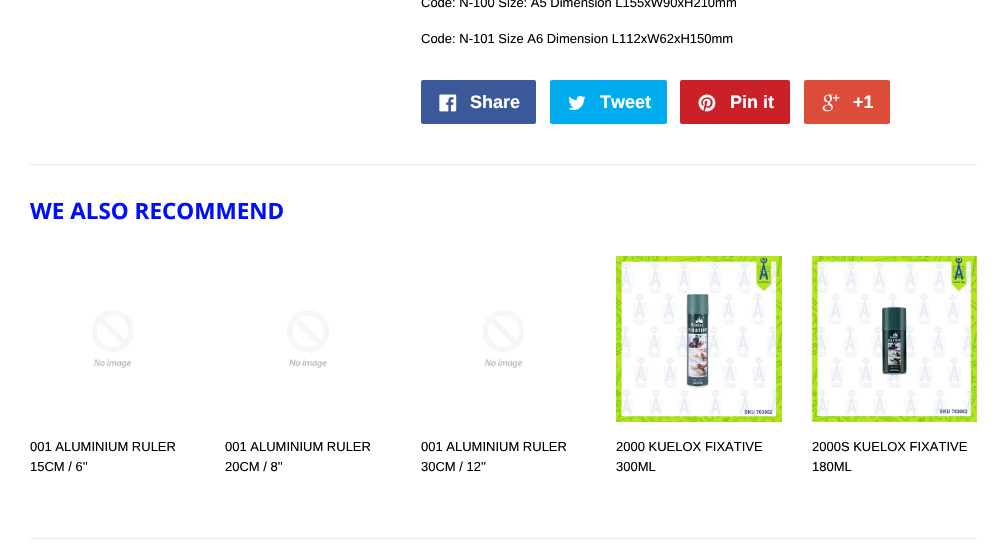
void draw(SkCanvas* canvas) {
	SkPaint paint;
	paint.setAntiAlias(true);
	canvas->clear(0xffffffff);
	SkFont f1(fontMgr->matchFamilyStyle("Liberation Sans", SkFontStyle::Normal()), 13);
	f1.setSubpixel(true);
	paint.setColor(0xff000000);
	canvas->drawString("Code: N-100 Size: A5 Dimension L155xW90xH210mm", 421, 7, f1, paint);
	canvas->drawString("Code: N-101 Size A6 Dimension L112xW62xH150mm", 421, 43, f1, paint);
	paint.setColor(0xff3b5998);
	canvas->drawRoundRect(SkRect::MakeXYWH(421, 80, 115, 44), 2, 2, paint);
	canvas->drawImageRect(SkImages::DeferredFromEncodedData(SkData::MakeFromFileName("img1.png")), SkRect::MakeXYWH(439, 94, 18, 18), SkSamplingOptions());
	SkFont f2(fontMgr->matchFamilyStyle("Liberation Sans", SkFontStyle::Bold()), 18);
	f2.setSubpixel(true);
	paint.setColor(0xffffffff);
	canvas->drawString("Share", 470, 108, f2, paint);
	paint.setColor(0xff00aced);
	canvas->drawRoundRect(SkRect::MakeXYWH(550, 80, 117, 44), 2, 2, paint);
	canvas->drawImageRect(SkImages::DeferredFromEncodedData(SkData::MakeFromFileName("img2.png")), SkRect::MakeXYWH(568, 95, 18, 15), SkSamplingOptions());
	paint.setColor(0xffffffff);
	canvas->drawString("Tweet", 600, 108, f2, paint);
	paint.setColor(0xffcb2027);
	canvas->drawRoundRect(SkRect::MakeXYWH(680, 80, 110, 44), 2, 2, paint);
	canvas->drawImageRect(SkImages::DeferredFromEncodedData(SkData::MakeFromFileName("img3.png")), SkRect::MakeXYWH(698, 94, 18, 18), SkSamplingOptions());
	paint.setColor(0xffffffff);
	canvas->drawString("Pin it", 730, 108, f2, paint);
	paint.setColor(0xffdd4b39);
	canvas->drawRoundRect(SkRect::MakeXYWH(804, 80, 86, 44), 2, 2, paint);
	canvas->drawImageRect(SkImages::DeferredFromEncodedData(SkData::MakeFromFileName("img4.png")), SkRect::MakeXYWH(822, 94, 18, 18), SkSamplingOptions());
	paint.setColor(0xffffffff);
	canvas->drawString("+1", 853, 108, f2, paint);
	paint.setColor(0xffececec);
	canvas->drawRect(SkRect::MakeXYWH(30, 164, 947, 1), paint);
	SkFont f3(fontMgr->matchFamilyStyle("Open Sans", SkFontStyle::Bold()), 22.5);
	f3.setSubpixel(true);
	paint.setColor(0xff000eff);
	canvas->drawString("WE ALSO RECOMMEND", 30, 219, f3, paint);
	canvas->drawImageRect(SkImages::DeferredFromEncodedData(SkData::MakeFromFileName("img5.png")), SkRect::MakeXYWH(92, 310, 41, 58), SkSamplingOptions());
	paint.setColor(0xff000000);
	canvas->drawString("001 ALUMINIUM RULER", 30, 451, f1, paint);
	canvas->drawString("15CM / 6''", 30, 471, f1, paint);
	canvas->drawImageRect(SkImages::DeferredFromEncodedData(SkData::MakeFromFileName("img6.png")), SkRect::MakeXYWH(287, 310, 42, 58), SkSamplingOptions());
	canvas->drawString("001 ALUMINIUM RULER", 225, 451, f1, paint);
	canvas->drawString("20CM / 8''", 225, 471, f1, paint);
	canvas->drawImageRect(SkImages::DeferredFromEncodedData(SkData::MakeFromFileName("img5.png")), SkRect::MakeXYWH(483, 310, 41, 58), SkSamplingOptions());
	canvas->drawString("001 ALUMINIUM RULER", 421, 451, f1, paint);
	canvas->drawString("30CM / 12''", 421, 471, f1, paint);
	canvas->drawImageRect(SkImages::DeferredFromEncodedData(SkData::MakeFromFileName("img7.png")), SkRect::MakeXYWH(616, 256, 166, 166), SkSamplingOptions());
	canvas->drawString("2000 KUELOX FIXATIVE", 616, 451, f1, paint);
	canvas->drawString("300ML", 616, 471, f1, paint);
	canvas->drawImageRect(SkImages::DeferredFromEncodedData(SkData::MakeFromFileName("img8.png")), SkRect::MakeXYWH(811, 256, 166, 166), SkSamplingOptions());
	canvas->drawString("2000S KUELOX FIXATIVE", 812, 451, f1, paint);
	canvas->drawString("180ML", 812, 471, f1, paint);
	paint.setColor(0xffececec);
	canvas->drawRect(SkRect::MakeXYWH(30, 538, 947, 1), paint);
}
